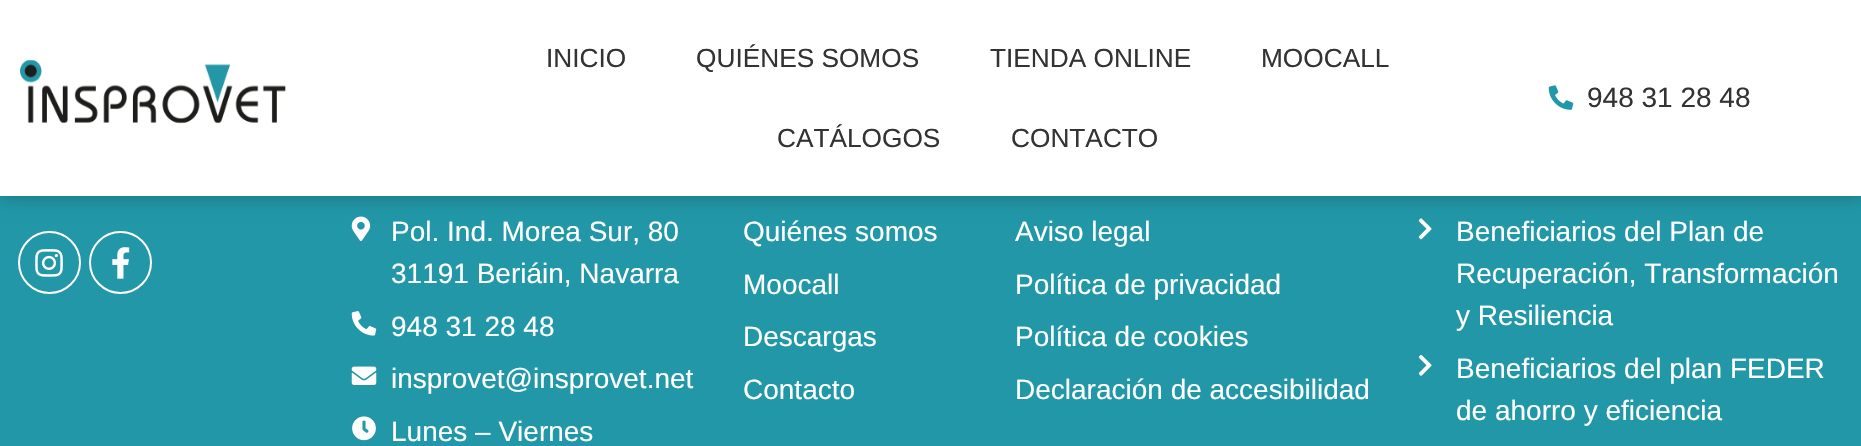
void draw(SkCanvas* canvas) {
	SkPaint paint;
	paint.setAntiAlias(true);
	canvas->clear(0xff2197a7);
	canvas->drawImageRect(SkImages::DeferredFromEncodedData(SkData::MakeFromFileName("img5.png")), SkRect::MakeXYWH(351, 216, 20, 25), SkSamplingOptions());
	canvas->drawImageRect(SkImages::DeferredFromEncodedData(SkData::MakeFromFileName("img9.png")), SkRect::MakeXYWH(1418, 218, 14, 22), SkSamplingOptions());
	paint.setColor(0x42000000);
	paint.setMaskFilter(SkMaskFilter::MakeBlur(kNormal_SkBlurStyle, 9));
	canvas->drawRect(SkRect::MakeXYWH(0, 0, 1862, 196), paint);
	paint.setMaskFilter(nullptr);
	paint.setColor(0xffffffff);
	canvas->drawRect(SkRect::MakeXYWH(0, 0, 1861, 196), paint);
	canvas->drawImageRect(SkImages::DeferredFromEncodedData(SkData::MakeFromFileName("img1.png")), SkRect::MakeXYWH(20, 59, 266, 65), SkSamplingOptions());
	SkFont f1(fontMgr->matchFamilyStyle("Liberation Sans", SkFontStyle::Normal()), 26.25);
	f1.setSubpixel(true);
	paint.setColor(0xff333333);
	canvas->drawString("INICIO", 546, 67, f1, paint);
	canvas->drawString("QUIÉNES SOMOS", 696, 67, f1, paint);
	canvas->drawString("TIENDA ONLINE", 990, 67, f1, paint);
	canvas->drawString("MOOCALL", 1261, 67, f1, paint);
	canvas->drawString("CATÁLOGOS", 777, 147, f1, paint);
	canvas->drawString("CONTACTO", 1011, 147, f1, paint);
	canvas->drawImageRect(SkImages::DeferredFromEncodedData(SkData::MakeFromFileName("img2.png")), SkRect::MakeXYWH(1548, 85, 26, 25), SkSamplingOptions());
	SkFont f2(fontMgr->matchFamilyStyle("Liberation Sans", SkFontStyle::Normal()), 28);
	f2.setSubpixel(true);
	canvas->drawString("948 31 28 48", 1587, 107, f2, paint);
	paint.setStroke(true);
	paint.setStrokeWidth(2);
	paint.setColor(0xffffffff);
	canvas->drawCircle(49.5, 262.5, 30.5, paint);
	canvas->drawImageRect(SkImages::DeferredFromEncodedData(SkData::MakeFromFileName("img3.png")), SkRect::MakeXYWH(35, 249, 28, 28), SkSamplingOptions());
	canvas->drawCircle(120.5, 262.5, 30.5, paint);
	canvas->drawImageRect(SkImages::DeferredFromEncodedData(SkData::MakeFromFileName("img4.png")), SkRect::MakeXYWH(112, 247, 18, 32), SkSamplingOptions());
	paint.setStroke(false);
	canvas->drawString("Pol. Ind. Morea Sur, 80", 391, 241, f2, paint);
	canvas->drawString("31191 Beriáin, Navarra", 391, 283, f2, paint);
	canvas->drawImageRect(SkImages::DeferredFromEncodedData(SkData::MakeFromFileName("img6.png")), SkRect::MakeXYWH(351, 311, 26, 25), SkSamplingOptions());
	canvas->drawString("948 31 28 48", 391, 336, f2, paint);
	canvas->drawImageRect(SkImages::DeferredFromEncodedData(SkData::MakeFromFileName("img7.png")), SkRect::MakeXYWH(351, 366, 26, 19), SkSamplingOptions());
	canvas->drawString("insprovet@insprovet.net", 391, 388, f2, paint);
	canvas->drawImageRect(SkImages::DeferredFromEncodedData(SkData::MakeFromFileName("img8.png")), SkRect::MakeXYWH(352, 416, 24, 25), SkSamplingOptions());
	canvas->drawString("Lunes – Viernes", 391, 441, f2, paint);
	canvas->drawString("Quiénes somos", 743, 241, f2, paint);
	canvas->drawString("Moocall", 743, 294, f2, paint);
	canvas->drawString("Descargas", 743, 346, f2, paint);
	canvas->drawString("Contacto", 743, 399, f2, paint);
	canvas->drawString("Aviso legal", 1015, 241, f2, paint);
	canvas->drawString("Política de privacidad", 1015, 294, f2, paint);
	canvas->drawString("Política de cookies", 1015, 346, f2, paint);
	canvas->drawString("Declaración de accesibilidad", 1015, 399, f2, paint);
	canvas->drawString("Beneficiarios del Plan de", 1456, 241, f2, paint);
	canvas->drawString("Recuperación, Transformación", 1456, 283, f2, paint);
	canvas->drawString("y Resiliencia", 1456, 325, f2, paint);
	canvas->drawImageRect(SkImages::DeferredFromEncodedData(SkData::MakeFromFileName("img10.png")), SkRect::MakeXYWH(1418, 354, 14, 22), SkSamplingOptions());
	canvas->drawString("Beneficiarios del plan FEDER", 1456, 378, f2, paint);
	canvas->drawString("de ahorro y eficiencia", 1456, 420, f2, paint);
}
